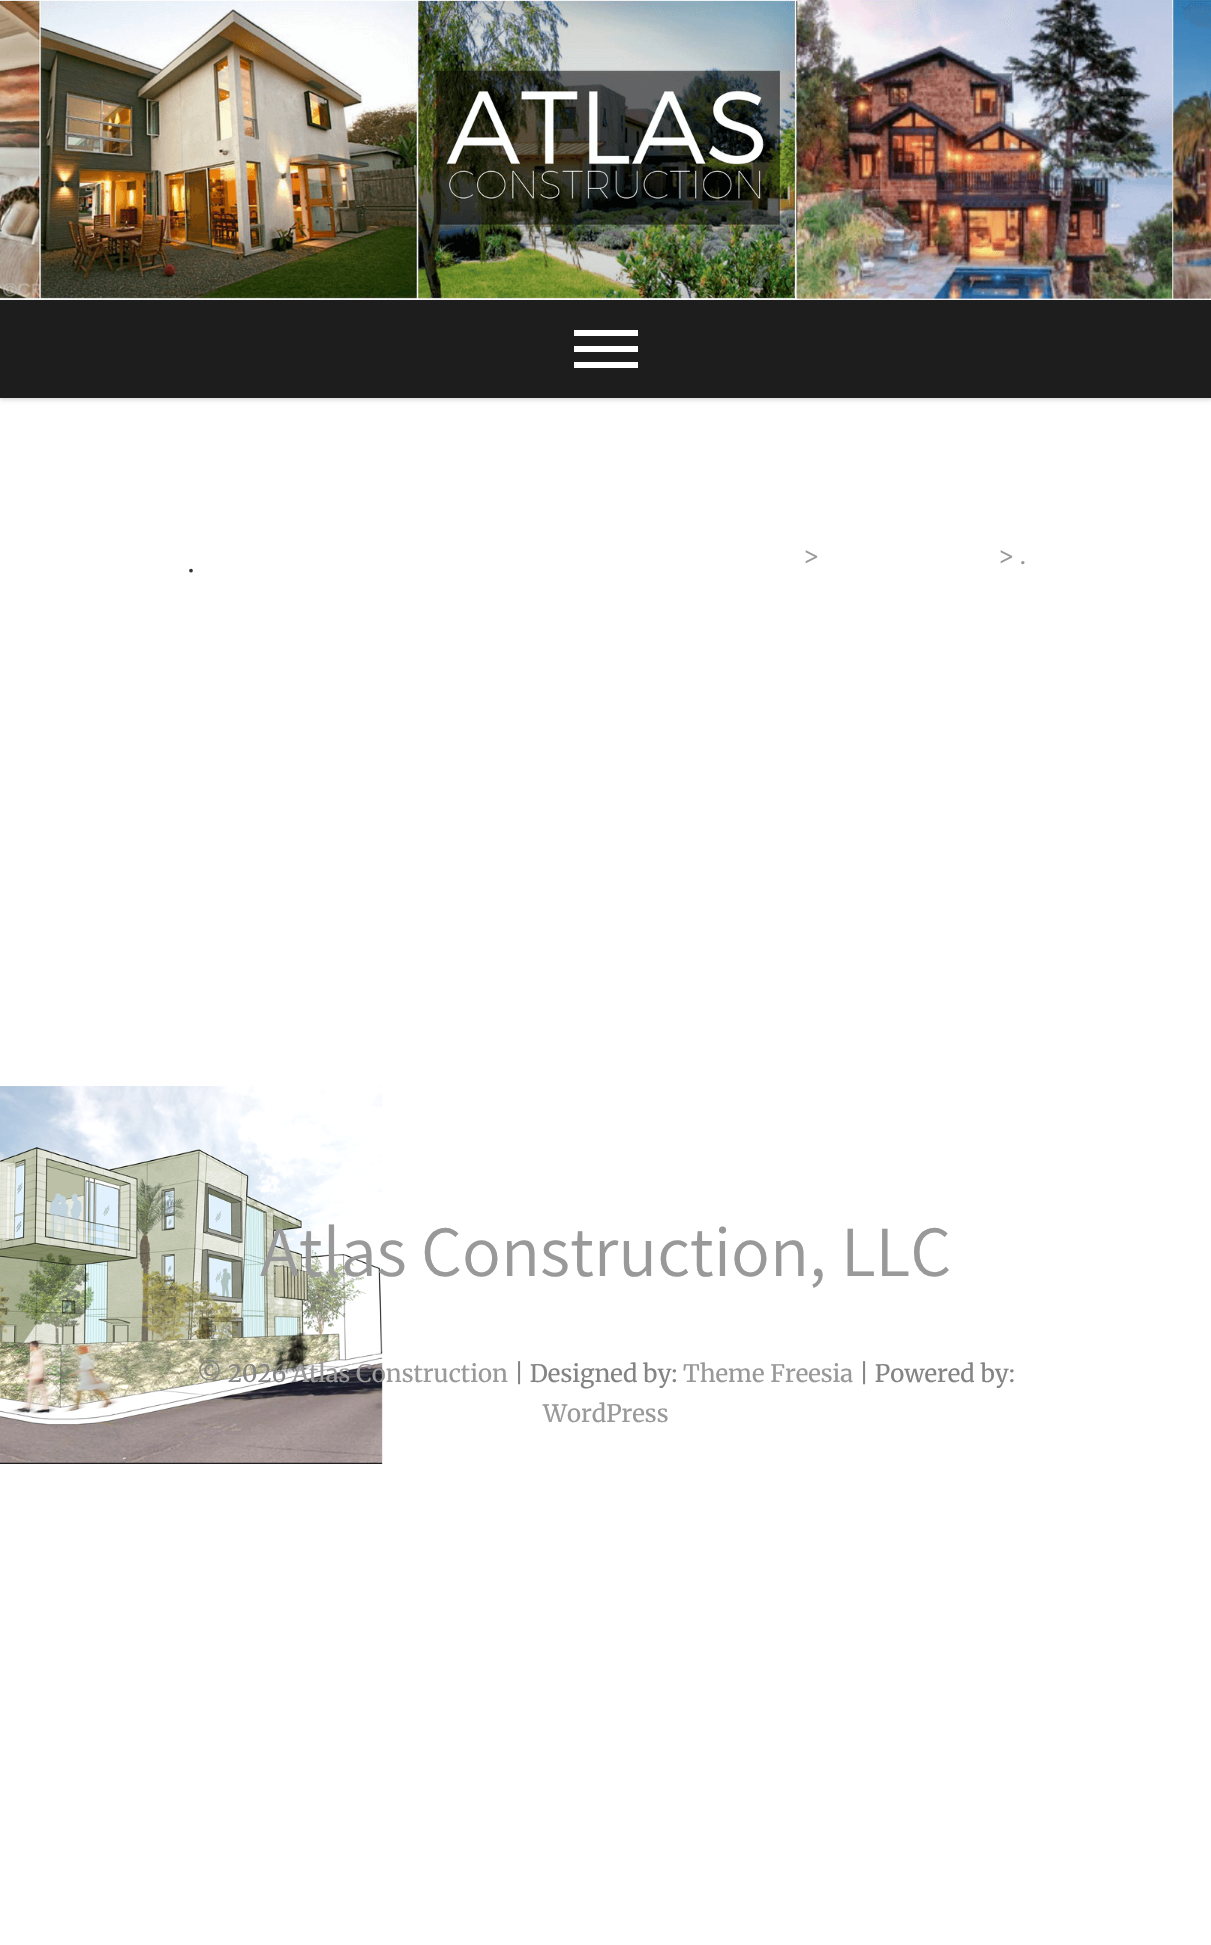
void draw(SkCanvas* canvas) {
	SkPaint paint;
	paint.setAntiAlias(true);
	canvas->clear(0xffffffff);
	canvas->drawImageRect(SkImages::DeferredFromEncodedData(SkData::MakeFromFileName("img1.png")), SkRect::MakeXYWH(0, 0, 1211, 300), SkSamplingOptions());
	paint.setColor(0x26000000);
	paint.setMaskFilter(SkMaskFilter::MakeBlur(kNormal_SkBlurStyle, 2));
	canvas->drawRect(SkRect::MakeXYWH(0, 302, 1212, 98), paint);
	paint.setMaskFilter(nullptr);
	paint.setColor(0xff1d1d1d);
	canvas->drawRect(SkRect::MakeXYWH(0, 300, 1211, 98), paint);
	paint.setColor(0xffffffff);
	canvas->drawRect(SkRect::MakeXYWH(574, 330, 64, 6), paint);
	canvas->drawRect(SkRect::MakeXYWH(574, 346, 64, 6), paint);
	canvas->drawRect(SkRect::MakeXYWH(574, 362, 64, 6), paint);
	SkFont f1(fontMgr->matchFamilyStyle("Merriweather", SkFontStyle(300, SkFontStyle::kNormal_Width, SkFontStyle::kUpright_Slant)), 24);
	f1.setSubpixel(true);
	paint.setColor(0xff999999);
	canvas->drawString(">", 803, 564, f1, paint);
	canvas->drawString("> .", 998, 564, f1, paint);
	SkFont f2(fontMgr->matchFamilyStyle("Assistant", SkFontStyle(200, SkFontStyle::kNormal_Width, SkFontStyle::kUpright_Slant)), 48);
	f2.setSubpixel(true);
	paint.setColor(0xff333333);
	canvas->drawString(".", 186, 572, f2, paint);
	canvas->drawImageRect(SkImages::DeferredFromEncodedData(SkData::MakeFromFileName("img2.png")), SkRect::MakeXYWH(0, 1086, 1211, 378), SkSamplingOptions());
	SkFont f3(fontMgr->matchFamilyStyle("Assistant", SkFontStyle::Normal()), 72);
	f3.setSubpixel(true);
	paint.setColor(0xff999999);
	canvas->drawString("Atlas Construction, LLC", 260, 1276, f3, paint);
	paint.setColor(0xff848484);
	canvas->drawString("© 2026", 197, 1382, f1, paint);
	paint.setColor(0xff999999);
	canvas->drawString("Atlas Construction", 292, 1382, f1, paint);
	paint.setColor(0xff848484);
	canvas->drawString("| Designed by:", 514, 1382, f1, paint);
	paint.setColor(0xff999999);
	canvas->drawString("Theme Freesia", 683, 1382, f1, paint);
	paint.setColor(0xff848484);
	canvas->drawString("| Powered by:", 859, 1382, f1, paint);
	paint.setColor(0xff999999);
	canvas->drawString("WordPress", 543, 1422, f1, paint);
}
